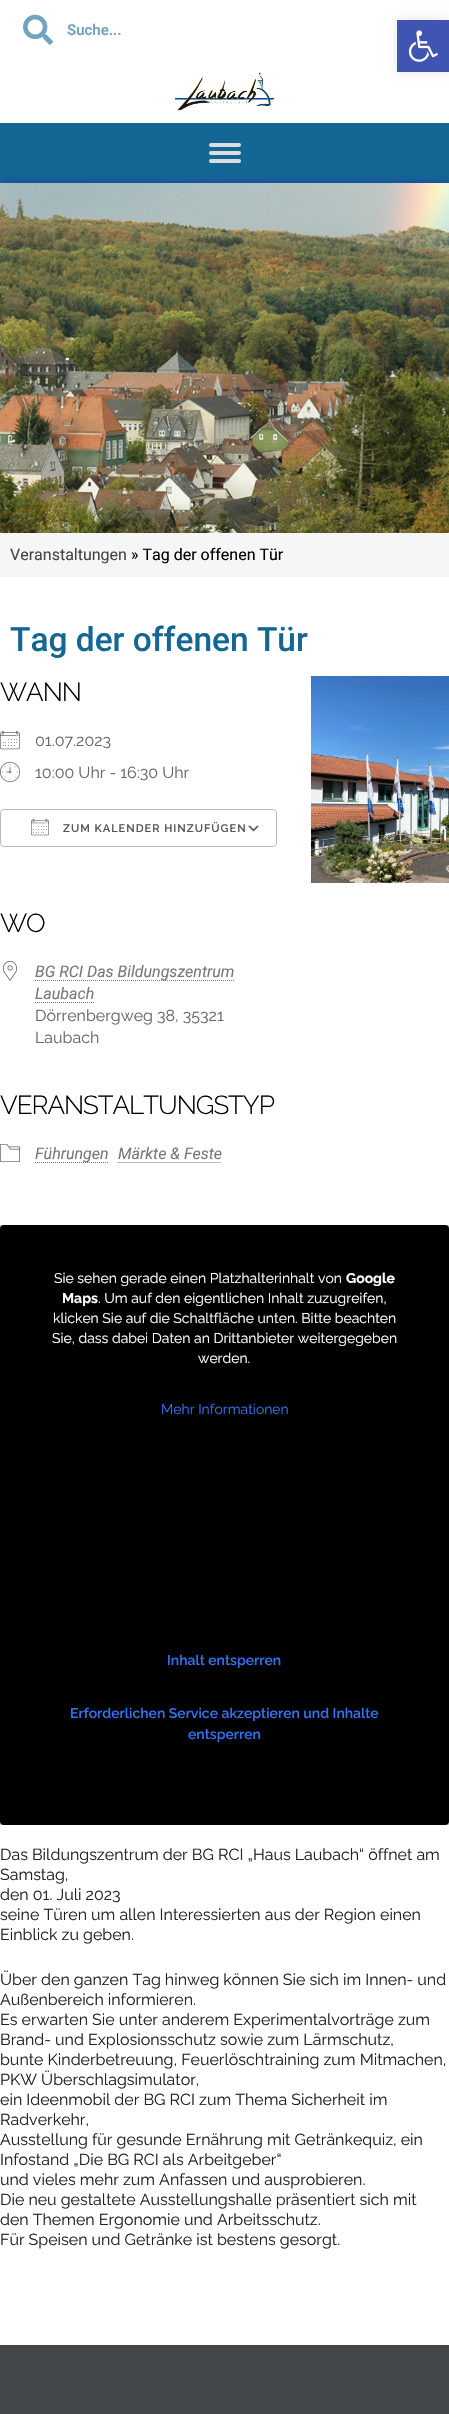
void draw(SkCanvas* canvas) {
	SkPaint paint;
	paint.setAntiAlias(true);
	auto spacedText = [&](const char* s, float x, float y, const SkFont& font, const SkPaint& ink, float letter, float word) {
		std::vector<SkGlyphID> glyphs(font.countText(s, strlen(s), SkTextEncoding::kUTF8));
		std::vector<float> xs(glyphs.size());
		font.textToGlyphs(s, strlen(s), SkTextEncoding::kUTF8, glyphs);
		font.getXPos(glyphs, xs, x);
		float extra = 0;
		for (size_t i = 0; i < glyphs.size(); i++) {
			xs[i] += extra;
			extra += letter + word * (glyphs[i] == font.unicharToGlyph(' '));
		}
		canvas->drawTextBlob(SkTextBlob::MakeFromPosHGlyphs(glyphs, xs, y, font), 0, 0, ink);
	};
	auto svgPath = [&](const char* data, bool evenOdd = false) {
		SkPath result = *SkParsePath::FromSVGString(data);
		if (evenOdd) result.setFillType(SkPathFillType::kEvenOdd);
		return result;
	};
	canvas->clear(0xffffffff);
	canvas->drawImageRect(SkImages::DeferredFromEncodedData(SkData::MakeFromFileName("img1.png")), SkRect::MakeXYWH(23, 14, 30, 31), SkSamplingOptions());
	SkFont f1(fontMgr->matchFamilyStyle("Roboto", SkFontStyle(600, SkFontStyle::kNormal_Width, SkFontStyle::kUpright_Slant)), 15);
	f1.setSubpixel(true);
	paint.setColor(0xff72a3bf);
	canvas->drawString("Suche...", 67, 35, f1, paint);
	canvas->drawImageRect(SkImages::DeferredFromEncodedData(SkData::MakeFromFileName("img2.png")), SkRect::MakeXYWH(175, 71, 99, 40), SkSamplingOptions());
	paint.setColor(0xff146694);
	canvas->drawRect(SkRect::MakeXYWH(0, 123, 449, 60), paint);
	paint.setColor(0xffdddddd);
	canvas->drawRoundRect(SkRect::MakeXYWH(209, 143, 32, 4), 2, 2, paint);
	canvas->drawRoundRect(SkRect::MakeXYWH(209, 151, 32, 4), 2, 2, paint);
	canvas->drawRoundRect(SkRect::MakeXYWH(209, 159, 32, 4), 2, 2, paint);
	paint.setColor(0x801e0fbf);
	paint.setMaskFilter(SkMaskFilter::MakeBlur(kNormal_SkBlurStyle, 5));
	canvas->drawRoundRect(SkRect::MakeXYWH(0, 183, 449, 350), 1, 1, paint);
	paint.setMaskFilter(nullptr);
	canvas->drawImageRect(SkImages::DeferredFromEncodedData(SkData::MakeFromFileName("img3.png")), SkRect::MakeXYWH(0, 183, 449, 350), SkSamplingOptions());
	paint.setColor(0xfff6f6f6);
	canvas->drawRect(SkRect::MakeXYWH(0, 533, 449, 44), paint);
	SkFont f2(fontMgr->matchFamilyStyle("Roboto", SkFontStyle::Normal()), 16);
	f2.setSubpixel(true);
	paint.setColor(0xff43474a);
	canvas->drawString("Veranstaltungen", 10, 560, f2, paint);
	paint.setColor(0xff000000);
	canvas->drawString("» Tag der offenen Tür", 131, 560, f2, paint);
	paint.setColor(0x1a000000);
	paint.setMaskFilter(SkMaskFilter::MakeBlur(kNormal_SkBlurStyle, 5));
	canvas->drawRect(SkRect::MakeXYWH(397, 20, 52, 52), paint);
	paint.setMaskFilter(nullptr);
	paint.setColor(0xff4054b2);
	canvas->drawRect(SkRect::MakeXYWH(397, 20, 52, 52), paint);
	canvas->drawImageRect(SkImages::DeferredFromEncodedData(SkData::MakeFromFileName("img4.png")), SkRect::MakeXYWH(408, 30, 30, 32), SkSamplingOptions());
	SkFont f3(fontMgr->matchFamilyStyle("Roboto", SkFontStyle(500, SkFontStyle::kNormal_Width, SkFontStyle::kUpright_Slant)), 33.5);
	f3.setSubpixel(true);
	paint.setColor(0xff146694);
	canvas->drawString("Tag der offenen Tür", 10, 651, f3, paint);
	SkFont f4(fontMgr->matchFamilyStyle("Raleway", SkFontStyle(300, SkFontStyle::kNormal_Width, SkFontStyle::kUpright_Slant)), 26);
	f4.setSubpixel(true);
	paint.setColor(0xff000000);
	spacedText("WANN", 0, 701, f4, paint, -1, 0);
	canvas->drawImageRect(SkImages::DeferredFromEncodedData(SkData::MakeFromFileName("img5.png")), SkRect::MakeXYWH(0, 730, 20, 20), SkSamplingOptions());
	SkFont f5(fontMgr->matchFamilyStyle("Raleway", SkFontStyle::Normal()), 16);
	f5.setSubpixel(true);
	paint.setColor(0xff666666);
	canvas->drawString("01.07.2023", 35, 746, f5, paint);
	canvas->drawImageRect(SkImages::DeferredFromEncodedData(SkData::MakeFromFileName("img6.png")), SkRect::MakeXYWH(0, 762, 20, 20), SkSamplingOptions());
	canvas->drawString("10:00 Uhr - 16:30 Uhr", 35, 778, f5, paint);
	canvas->drawImageRect(SkImages::DeferredFromEncodedData(SkData::MakeFromFileName("img7.png")), SkRect::MakeXYWH(248, 825, 11, 7), SkSamplingOptions());
	paint.setStroke(true);
	paint.setStrokeWidth(1);
	paint.setColor(0xffbababa);
	canvas->drawRoundRect(SkRect::MakeXYWH(0.5, 809.5, 276, 37), 3.5, 3.5, paint);
	canvas->drawImageRect(SkImages::DeferredFromEncodedData(SkData::MakeFromFileName("img8.png")), SkRect::MakeXYWH(31, 818, 18, 18), SkSamplingOptions());
	SkFont f6(fontMgr->matchFamilyStyle("Raleway", SkFontStyle(600, SkFontStyle::kNormal_Width, SkFontStyle::kUpright_Slant)), 11);
	f6.setSubpixel(true);
	paint.setStroke(false);
	paint.setColor(0xff545454);
	spacedText("ZUM KALENDER HINZUFÜGEN", 63, 832, f6, paint, 1, 0);
	paint.setColor(0xff000000);
	spacedText("WO", 0, 932, f4, paint, -1, 0);
	canvas->drawImageRect(SkImages::DeferredFromEncodedData(SkData::MakeFromFileName("img9.png")), SkRect::MakeXYWH(3, 961, 14, 20), SkSamplingOptions());
	paint.setStroke(true);
	paint.setColor(0xff787878);
	paint.setPathEffect(SkDashPathEffect::Make({{1, 1}}, 0));
	canvas->drawPath(svgPath("M35 980.5H234.5"), paint);
	paint.setPathEffect(nullptr);
	SkFont f7(fontMgr->matchFamilyStyle("Roboto", SkFontStyle::Italic()), 16);
	f7.setSubpixel(true);
	paint.setStroke(false);
	canvas->drawString("BG RCI Das Bildungszentrum", 35, 977, f7, paint);
	canvas->drawString("Laubach", 35, 999, f7, paint);
	paint.setStroke(true);
	paint.setPathEffect(SkDashPathEffect::Make({{1, 1}}, 0));
	canvas->drawPath(svgPath("M35 1002.5H94"), paint);
	paint.setPathEffect(nullptr);
	paint.setStroke(false);
	paint.setColor(0xff666666);
	canvas->drawString("Dörrenbergweg 38, 35321", 35, 1021, f5, paint);
	canvas->drawString("Laubach", 35, 1043, f5, paint);
	paint.setColor(0xff000000);
	spacedText("VERANSTALTUNGSTYP", 0, 1114, f4, paint, -1, 0);
	canvas->drawImageRect(SkImages::DeferredFromEncodedData(SkData::MakeFromFileName("img10.png")), SkRect::MakeXYWH(0, 1144, 20, 18), SkSamplingOptions());
	paint.setStroke(true);
	paint.setColor(0xff787878);
	paint.setPathEffect(SkDashPathEffect::Make({{1, 1}}, 0));
	canvas->drawPath(svgPath("M35 1162.5H108.5"), paint);
	paint.setPathEffect(nullptr);
	paint.setStroke(false);
	canvas->drawString("Führungen", 35, 1159, f7, paint);
	canvas->drawString("Märkte & Feste", 118, 1159, f7, paint);
	paint.setStroke(true);
	paint.setPathEffect(SkDashPathEffect::Make({{1, 1}}, 0));
	canvas->drawPath(svgPath("M117.5 1162.5H221.5"), paint);
	paint.setPathEffect(nullptr);
	canvas->drawImageRect(SkImages::DeferredFromEncodedData(SkData::MakeFromFileName("img11.png")), SkRect::MakeXYWH(311, 676, 138, 207), SkSamplingOptions());
	paint.setStroke(false);
	paint.setColor(0xffcdcdcd);
	canvas->drawRect(SkRect::MakeXYWH(0, 1225, 449, 600), paint);
	paint.setColor(0xff000000);
	canvas->drawRoundRect(SkRect::MakeXYWH(0, 1225, 449, 600), 4, 4, paint);
	SkFont f8(fontMgr->matchFamilyStyle("Raleway", SkFontStyle::Normal()), 14);
	f8.setSubpixel(true);
	paint.setColor(0xffffffff);
	canvas->drawString("Sie sehen gerade einen Platzhalterinhalt von", 54, 1283, f8, paint);
	SkFont f9(fontMgr->matchFamilyStyle("Raleway", SkFontStyle::Bold()), 14);
	f9.setSubpixel(true);
	canvas->drawString("Google", 346, 1283, f9, paint);
	canvas->drawString("Maps", 62, 1303, f9, paint);
	canvas->drawString(". Um auf den eigentlichen Inhalt zuzugreifen,", 98, 1303, f8, paint);
	canvas->drawString("klicken Sie auf die Schaltfläche unten. Bitte beachten", 53, 1323, f8, paint);
	canvas->drawString("Sie, dass dabei Daten an Drittanbieter weitergegeben", 52, 1343, f8, paint);
	canvas->drawString("werden.", 198, 1363, f8, paint);
	paint.setColor(0xff3372f0);
	canvas->drawString("Mehr Informationen", 161, 1414, f8, paint);
	SkFont f10(fontMgr->matchFamilyStyle("Raleway", SkFontStyle(600, SkFontStyle::kNormal_Width, SkFontStyle::kUpright_Slant)), 14);
	f10.setSubpixel(true);
	canvas->drawString("Inhalt entsperren", 167, 1665, f10, paint);
	canvas->drawString("Erforderlichen Service akzeptieren und Inhalte", 70, 1718, f10, paint);
	canvas->drawString("entsperren", 188, 1739, f10, paint);
	paint.setColor(0xff212121);
	canvas->drawString("Das Bildungszentrum der BG RCI „Haus Laubach“ öffnet am", 0, 1860, f5, paint);
	canvas->drawString("Samstag,", 0, 1880, f5, paint);
	canvas->drawString("den 01. Juli 2023", 0, 1900, f5, paint);
	canvas->drawString("seine Türen um allen Interessierten aus der Region einen", 0, 1920, f5, paint);
	canvas->drawString("Einblick zu geben.", 0, 1940, f5, paint);
	canvas->drawString("Über den ganzen Tag hinweg können Sie sich im Innen- und", 0, 1985, f5, paint);
	canvas->drawString("Außenbereich informieren.", 0, 2005, f5, paint);
	canvas->drawString("Es erwarten Sie unter anderem Experimentalvorträge zum", 0, 2025, f5, paint);
	canvas->drawString("Brand- und Explosionsschutz sowie zum Lärmschutz,", 0, 2045, f5, paint);
	canvas->drawString("bunte Kinderbetreuung, Feuerlöschtraining zum Mitmachen,", 0, 2065, f5, paint);
	canvas->drawString("PKW Überschlagsimulator,", 0, 2085, f5, paint);
	canvas->drawString("ein Ideenmobil der BG RCI zum Thema Sicherheit im", 0, 2105, f5, paint);
	canvas->drawString("Radverkehr,", 0, 2125, f5, paint);
	canvas->drawString("Ausstellung für gesunde Ernährung mit Getränkequiz, ein", 0, 2145, f5, paint);
	canvas->drawString("Infostand „Die BG RCI als Arbeitgeber“", 0, 2165, f5, paint);
	canvas->drawString("und vieles mehr zum Anfassen und ausprobieren.", 0, 2185, f5, paint);
	canvas->drawString("Die neu gestaltete Ausstellungshalle präsentiert sich mit", 0, 2205, f5, paint);
	canvas->drawString("den Themen Ergonomie und Arbeitsschutz.", 0, 2225, f5, paint);
	canvas->drawString("Für Speisen und Getränke ist bestens gesorgt.", 0, 2245, f5, paint);
	paint.setColor(0xff43474a);
	canvas->drawRect(SkRect::MakeXYWH(0, 2345, 449, 69), paint);
}
